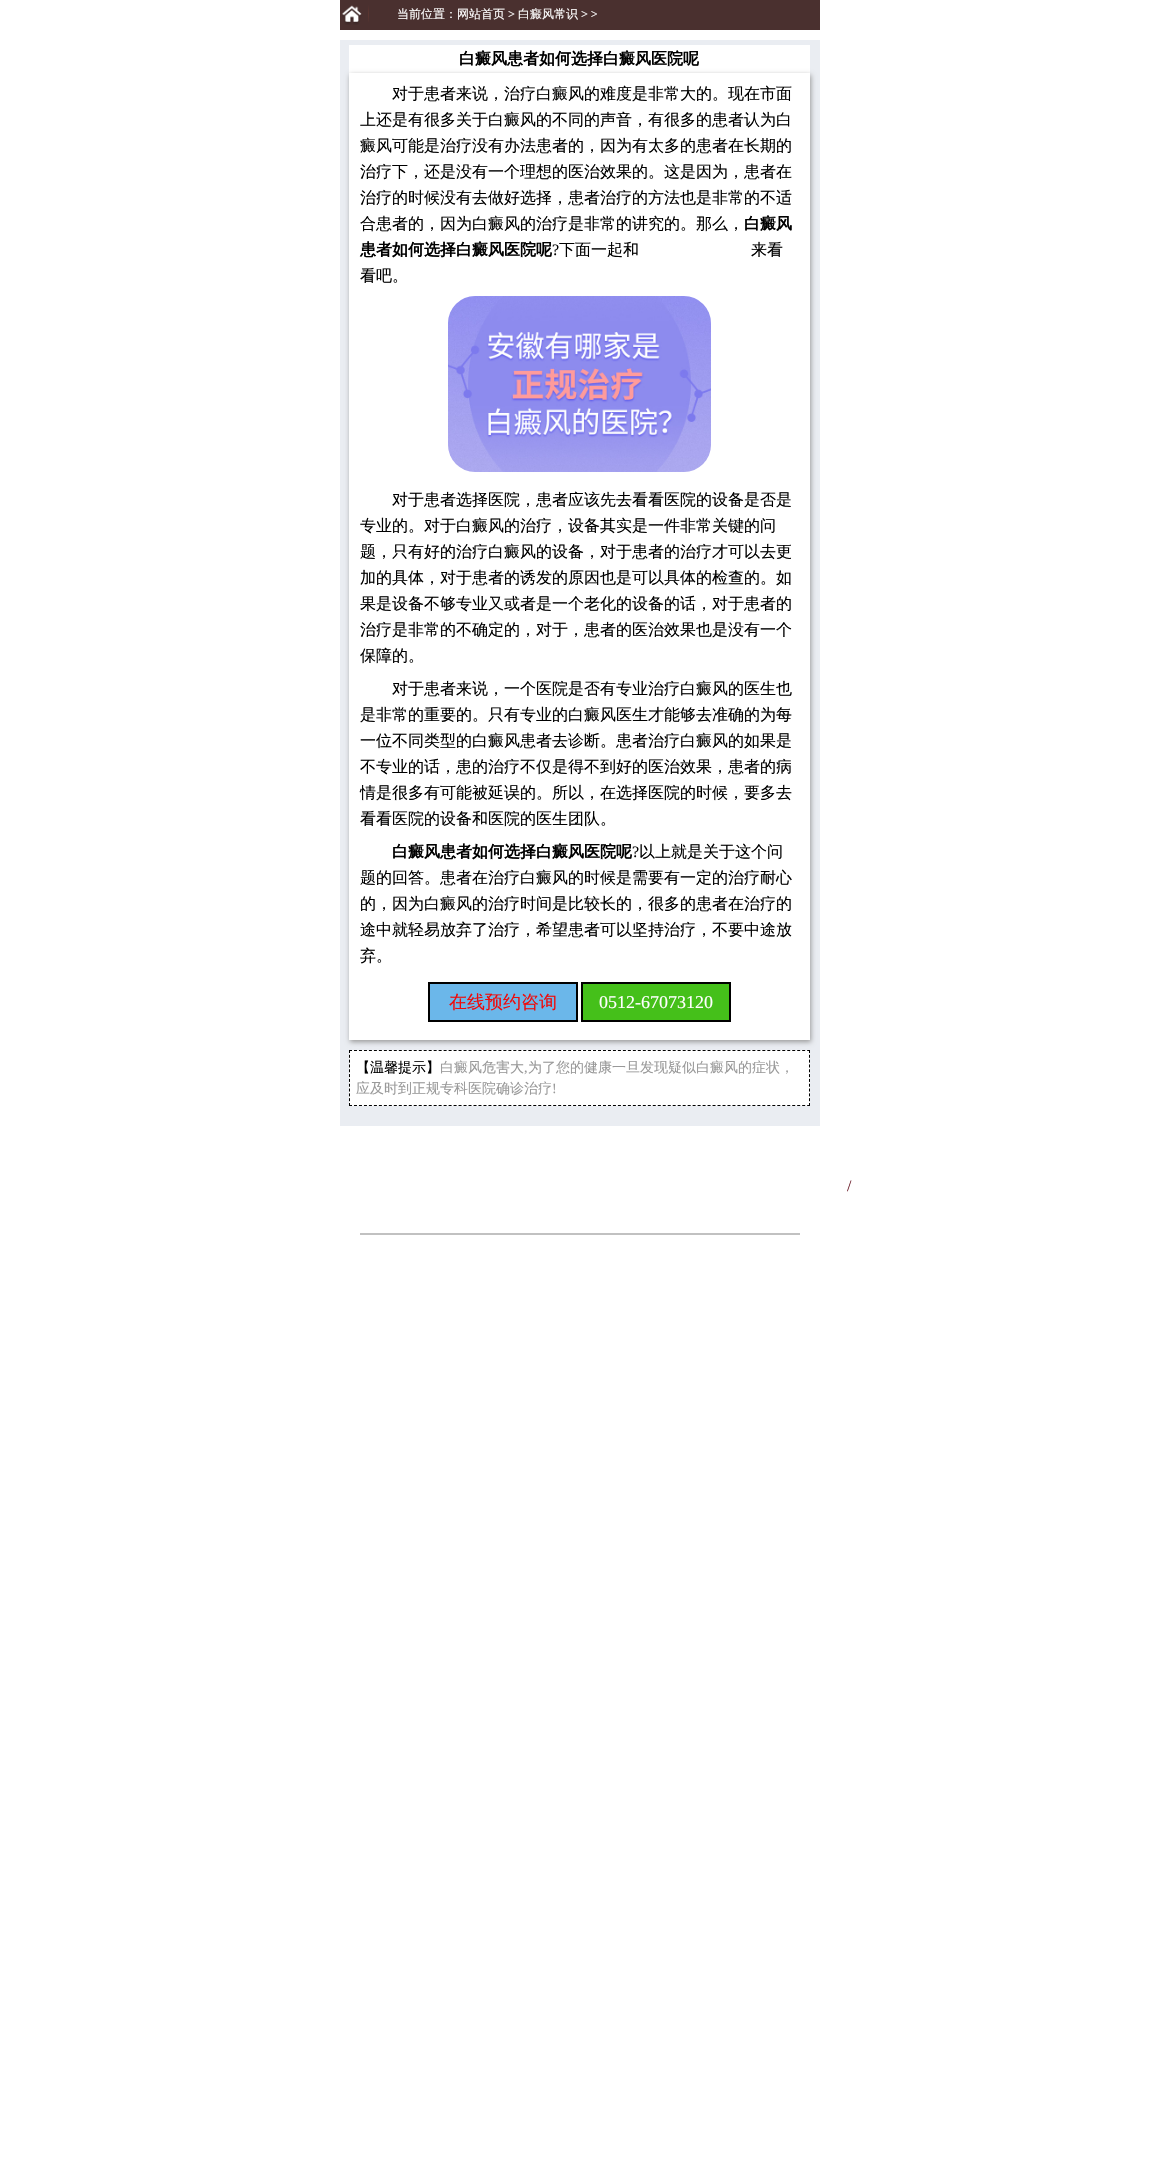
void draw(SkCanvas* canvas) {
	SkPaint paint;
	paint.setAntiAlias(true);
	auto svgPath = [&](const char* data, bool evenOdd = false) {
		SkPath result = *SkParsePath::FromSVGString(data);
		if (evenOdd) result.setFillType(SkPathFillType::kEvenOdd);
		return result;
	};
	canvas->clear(0xffffffff);
	paint.setColor(0xff4a302f);
	canvas->drawRect(SkRect::MakeXYWH(340, 0, 480, 30), paint);
	canvas->drawImageRect(SkImages::DeferredFromEncodedData(SkData::MakeFromFileName("img1.png")), SkRect::MakeXYWH(342, 5, 27, 20), SkSamplingOptions());
	SkFont f1(fontMgr->matchFamilyStyle("WenQuanYi Zen Hei", SkFontStyle(500, SkFontStyle::kNormal_Width, SkFontStyle::kUpright_Slant)), 12);
	f1.setSubpixel(true);
	paint.setColor(0xffffffff);
	canvas->drawString("当前位置：网站首页", 397, 18, f1, paint);
	SkFont f2(fontMgr->matchFamilyStyle("Liberation Serif", SkFontStyle::Normal()), 12);
	f2.setSubpixel(true);
	canvas->drawString(">", 508, 18, f2, paint);
	canvas->drawString("白癜风常识", 518, 18, f1, paint);
	canvas->drawString("> >", 581, 18, f2, paint);
	paint.setColor(0xffeaedf2);
	canvas->drawRect(SkRect::MakeXYWH(340, 40, 480, 1086), paint);
	paint.setColor(0xffffffff);
	canvas->drawRect(SkRect::MakeXYWH(349, 45, 461, 28), paint);
	paint.setColor(0xff999999);
	paint.setMaskFilter(SkMaskFilter::MakeBlur(kNormal_SkBlurStyle, 2.5));
	canvas->drawRect(SkRect::MakeXYWH(350, 75, 461, 967), paint);
	paint.setMaskFilter(nullptr);
	SkFont f3(fontMgr->matchFamilyStyle("WenQuanYi Zen Hei", SkFontStyle::Bold()), 16);
	f3.setSubpixel(true);
	paint.setColor(0xff000000);
	canvas->drawString("白癜风患者如何选择白癜风医院呢", 459, 64, f3, paint);
	paint.setColor(0xffffffff);
	canvas->drawRect(SkRect::MakeXYWH(349, 73, 461, 967), paint);
	SkFont f4(fontMgr->matchFamilyStyle("WenQuanYi Zen Hei", SkFontStyle(500, SkFontStyle::kNormal_Width, SkFontStyle::kUpright_Slant)), 16);
	f4.setSubpixel(true);
	paint.setColor(0xff000000);
	canvas->drawString("对于患者来说，治疗白癜风的难度是非常大的。现在市面", 392, 99, f4, paint);
	canvas->drawString("上还是有很多关于白癜风的不同的声音，有很多的患者认为白", 360, 125, f4, paint);
	canvas->drawString("癜风可能是治疗没有办法患者的，因为有太多的患者在长期的", 360, 151, f4, paint);
	canvas->drawString("治疗下，还是没有一个理想的医治效果的。这是因为，患者在", 360, 177, f4, paint);
	canvas->drawString("治疗的时候没有去做好选择，患者治疗的方法也是非常的不适", 360, 203, f4, paint);
	canvas->drawString("合患者的，因为白癜风的治疗是非常的讲究的。那么，", 360, 229, f4, paint);
	canvas->drawString("白癜风", 744, 229, f3, paint);
	canvas->drawString("患者如何选择白癜风医院呢", 360, 255, f3, paint);
	SkFont f5(fontMgr->matchFamilyStyle("Liberation Serif", SkFontStyle::Normal()), 16);
	f5.setSubpixel(true);
	canvas->drawString("?", 552, 255, f5, paint);
	canvas->drawString("下面一起和", 559, 255, f4, paint);
	canvas->drawString("来看", 751, 255, f4, paint);
	canvas->drawString("看吧。", 360, 281, f4, paint);
	canvas->drawImageRect(SkImages::DeferredFromEncodedData(SkData::MakeFromFileName("img2.png")), SkRect::MakeXYWH(448, 296, 263, 176), SkSamplingOptions());
	canvas->drawString("对于患者选择医院，患者应该先去看看医院的设备是否是", 392, 505, f4, paint);
	canvas->drawString("专业的。对于白癜风的治疗，设备其实是一件非常关键的问", 360, 531, f4, paint);
	canvas->drawString("题，只有好的治疗白癜风的设备，对于患者的治疗才可以去更", 360, 557, f4, paint);
	canvas->drawString("加的具体，对于患者的诱发的原因也是可以具体的检查的。如", 360, 583, f4, paint);
	canvas->drawString("果是设备不够专业又或者是一个老化的设备的话，对于患者的", 360, 609, f4, paint);
	canvas->drawString("治疗是非常的不确定的，对于，患者的医治效果也是没有一个", 360, 635, f4, paint);
	canvas->drawString("保障的。", 360, 661, f4, paint);
	canvas->drawString("对于患者来说，一个医院是否有专业治疗白癜风的医生也", 392, 694, f4, paint);
	canvas->drawString("是非常的重要的。只有专业的白癜风医生才能够去准确的为每", 360, 720, f4, paint);
	canvas->drawString("一位不同类型的白癜风患者去诊断。患者治疗白癜风的如果是", 360, 746, f4, paint);
	canvas->drawString("不专业的话，患的治疗不仅是得不到好的医治效果，患者的病", 360, 772, f4, paint);
	canvas->drawString("情是很多有可能被延误的。所以，在选择医院的时候，要多去", 360, 798, f4, paint);
	canvas->drawString("看看医院的设备和医院的医生团队。", 360, 824, f4, paint);
	canvas->drawString("白癜风患者如何选择白癜风医院呢", 392, 857, f3, paint);
	canvas->drawString("?", 632, 857, f5, paint);
	canvas->drawString("以上就是关于这个问", 639, 857, f4, paint);
	canvas->drawString("题的回答。患者在治疗白癜风的时候是需要有一定的治疗耐心", 360, 883, f4, paint);
	canvas->drawString("的，因为白癜风的治疗时间是比较长的，很多的患者在治疗的", 360, 909, f4, paint);
	canvas->drawString("途中就轻易放弃了治疗，希望患者可以坚持治疗，不要中途放", 360, 935, f4, paint);
	canvas->drawString("弃。", 360, 961, f4, paint);
	paint.setColor(0xff6bb7ea);
	canvas->drawRect(SkRect::MakeXYWH(429, 983, 148, 38), paint);
	paint.setStroke(true);
	paint.setStrokeWidth(2);
	paint.setColor(0xff000000);
	canvas->drawRect(SkRect::MakeXYWH(429, 983, 148, 38), paint);
	SkFont f6(fontMgr->matchFamilyStyle("WenQuanYi Zen Hei", SkFontStyle(500, SkFontStyle::kNormal_Width, SkFontStyle::kUpright_Slant)), 18);
	f6.setSubpixel(true);
	paint.setStroke(false);
	paint.setColor(0xffef0a0a);
	canvas->drawString("在线预约咨询", 449, 1008, f6, paint);
	paint.setColor(0xff45c01a);
	canvas->drawRect(SkRect::MakeXYWH(582, 983, 148, 38), paint);
	paint.setStroke(true);
	paint.setColor(0xff000000);
	canvas->drawRect(SkRect::MakeXYWH(582, 983, 148, 38), paint);
	SkFont f7(fontMgr->matchFamilyStyle("Liberation Serif", SkFontStyle::Normal()), 18);
	f7.setSubpixel(true);
	paint.setStroke(false);
	paint.setColor(0xffffffff);
	canvas->drawString("0512-67073120", 599, 1008, f7, paint);
	canvas->drawRect(SkRect::MakeXYWH(349, 1050, 461, 56), paint);
	paint.setStroke(true);
	paint.setStrokeWidth(1);
	paint.setColor(0xff000000);
	paint.setPathEffect(SkDashPathEffect::Make({{3, 1.98f}}, 0));
	canvas->drawPath(svgPath("M349 1050.5H810"), paint);
	paint.setPathEffect(nullptr);
	paint.setPathEffect(SkDashPathEffect::Make({{3, 1.82f}}, 0));
	canvas->drawPath(svgPath("M809.5 1050V1106"), paint);
	paint.setPathEffect(nullptr);
	paint.setPathEffect(SkDashPathEffect::Make({{3, 1.98f}}, 0));
	canvas->drawPath(svgPath("M349 1105.5H810"), paint);
	paint.setPathEffect(nullptr);
	paint.setPathEffect(SkDashPathEffect::Make({{3, 1.82f}}, 0));
	canvas->drawPath(svgPath("M349.5 1050V1106"), paint);
	paint.setPathEffect(nullptr);
	SkFont f8(fontMgr->matchFamilyStyle("WenQuanYi Zen Hei", SkFontStyle(500, SkFontStyle::kNormal_Width, SkFontStyle::kUpright_Slant)), 14);
	f8.setSubpixel(true);
	paint.setStroke(false);
	canvas->drawString("【温馨提示】", 356, 1072, f8, paint);
	paint.setColor(0xff999999);
	canvas->drawString("白癜风危害大", 440, 1072, f8, paint);
	SkFont f9(fontMgr->matchFamilyStyle("Liberation Serif", SkFontStyle::Normal()), 14);
	f9.setSubpixel(true);
	canvas->drawString(",", 524, 1072, f9, paint);
	canvas->drawString("为了您的健康一旦发现疑似白癜风的症状，", 528, 1072, f8, paint);
	canvas->drawString("应及时到正规专科医院确诊治疗", 356, 1093, f8, paint);
	canvas->drawString("!", 552, 1093, f9, paint);
	paint.setColor(0xffc1c1c1);
	canvas->drawRect(SkRect::MakeXYWH(360, 1233, 440, 2), paint);
	paint.setColor(0xff6d1f2c);
	canvas->drawString("/", 847, 1191, f5, paint);
}
